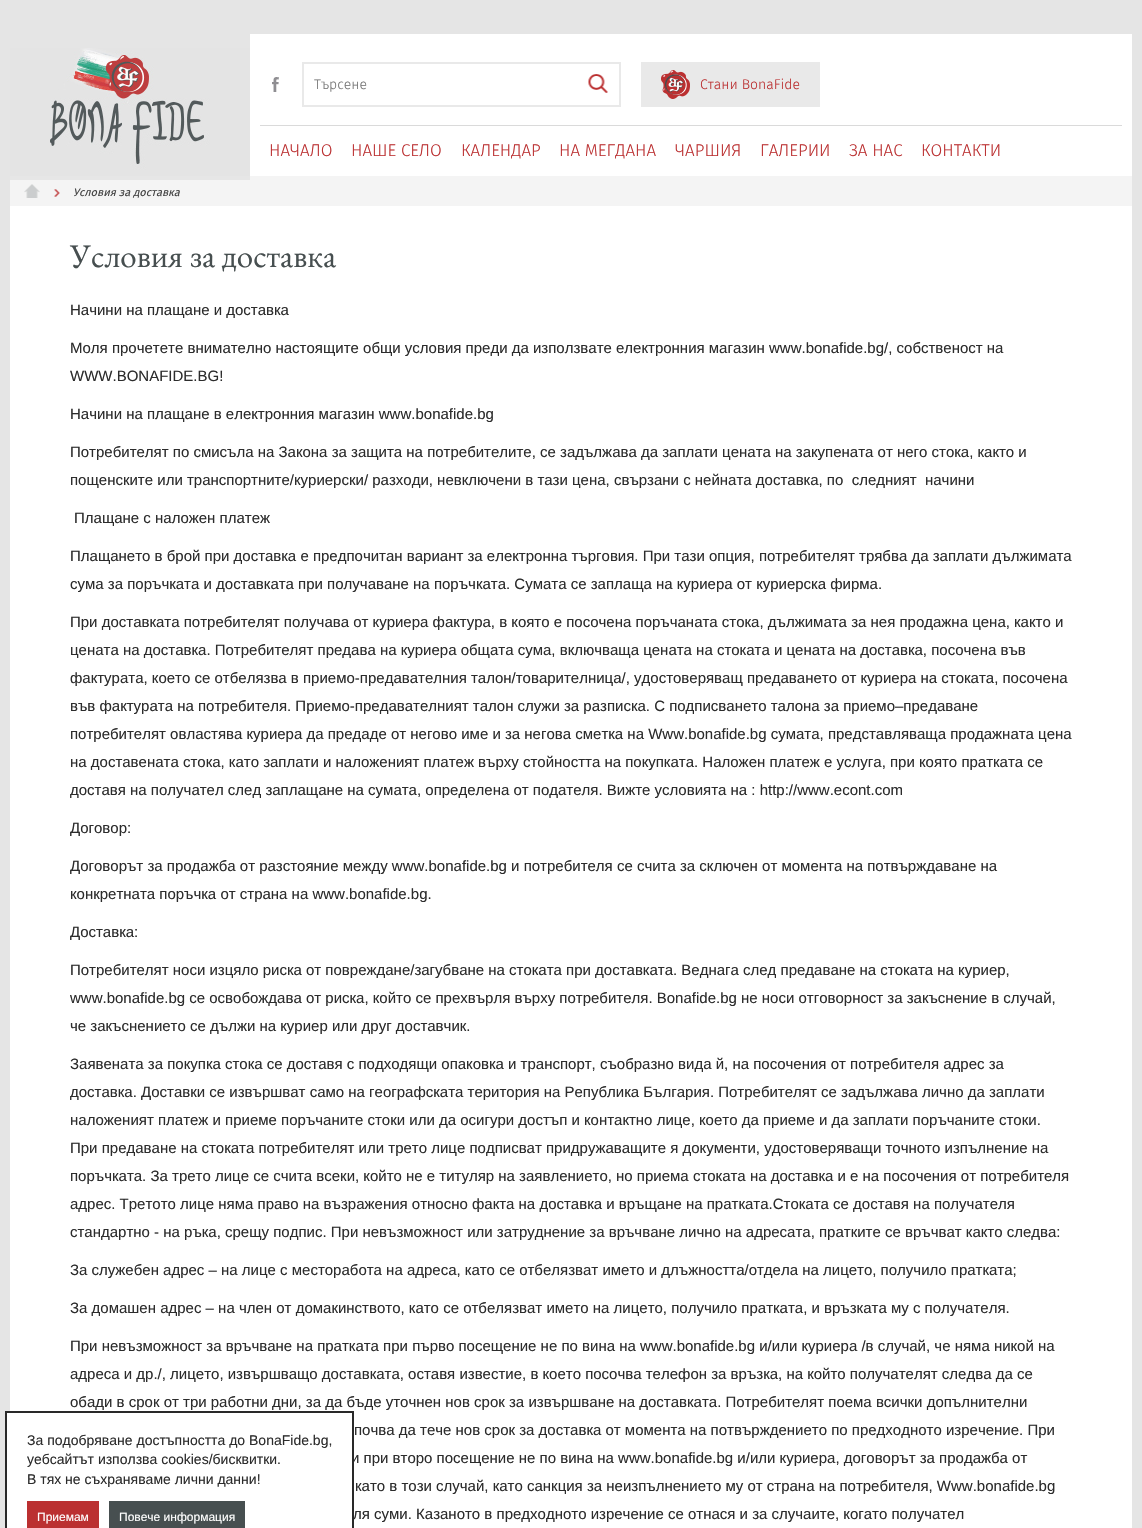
void draw(SkCanvas* canvas) {
	SkPaint paint;
	paint.setAntiAlias(true);
	canvas->clear(0xffe5e5e5);
	paint.setColor(0xffffffff);
	canvas->drawRect(SkRect::MakeXYWH(250, 34, 882, 142), paint);
	paint.setColor(0xffdadada);
	canvas->drawRect(SkRect::MakeXYWH(260, 125, 862, 1), paint);
	paint.setColor(0xfff4f4f4);
	canvas->drawRect(SkRect::MakeXYWH(10, 176, 1122, 30), paint);
	canvas->drawImageRect(SkImages::DeferredFromEncodedData(SkData::MakeFromFileName("img1.png")), SkRect::MakeXYWH(10, 48, 240, 132), SkSamplingOptions());
	canvas->drawImageRect(SkImages::DeferredFromEncodedData(SkData::MakeFromFileName("img2.png")), SkRect::MakeXYWH(272, 77, 7, 15), SkSamplingOptions());
	paint.setStroke(true);
	paint.setStrokeWidth(2);
	paint.setColor(0xffe9e9e9);
	canvas->drawRect(SkRect::MakeXYWH(303, 63, 317, 43), paint);
	SkFont f1(fontMgr->matchFamilyStyle("Fira Sans", SkFontStyle(300, SkFontStyle::kNormal_Width, SkFontStyle::kUpright_Slant)), 14);
	f1.setSubpixel(true);
	paint.setStroke(false);
	paint.setColor(0xff757575);
	canvas->drawString("Търсене", 314, 89, f1, paint);
	canvas->drawImageRect(SkImages::DeferredFromEncodedData(SkData::MakeFromFileName("img3.png")), SkRect::MakeXYWH(588, 74, 20, 19), SkSamplingOptions());
	paint.setColor(0xffe9e9e9);
	canvas->drawRect(SkRect::MakeXYWH(641, 62, 179, 45), paint);
	canvas->drawImageRect(SkImages::DeferredFromEncodedData(SkData::MakeFromFileName("img4.png")), SkRect::MakeXYWH(661, 70, 29, 29), SkSamplingOptions());
	paint.setColor(0xffbb3031);
	canvas->drawString("Стани BonaFide", 700, 89, f1, paint);
	SkFont f2(fontMgr->matchFamilyStyle("Fira Sans", SkFontStyle(300, SkFontStyle::kNormal_Width, SkFontStyle::kUpright_Slant)), 17);
	f2.setSubpixel(true);
	canvas->drawString("НАЧАЛО", 269, 156, f2, paint);
	canvas->drawString("НАШЕ СЕЛО", 351, 156, f2, paint);
	canvas->drawString("КАЛЕНДАР", 461, 156, f2, paint);
	canvas->drawString("НА МЕГДАНА", 559, 156, f2, paint);
	canvas->drawString("ЧАРШИЯ", 675, 156, f2, paint);
	canvas->drawString("ГАЛЕРИИ", 760, 156, f2, paint);
	canvas->drawString("ЗА НАС", 849, 156, f2, paint);
	canvas->drawString("КОНТАКТИ", 921, 156, f2, paint);
	paint.setColor(0xffffffff);
	canvas->drawRect(SkRect::MakeXYWH(10, 206, 1122, 1322), paint);
	canvas->drawImageRect(SkImages::DeferredFromEncodedData(SkData::MakeFromFileName("img5.png")), SkRect::MakeXYWH(24, 184, 16, 14), SkSamplingOptions());
	canvas->drawImageRect(SkImages::DeferredFromEncodedData(SkData::MakeFromFileName("img6.png")), SkRect::MakeXYWH(54, 189, 6, 8), SkSamplingOptions());
	SkFont f3(fontMgr->matchFamilyStyle("Fira Sans", SkFontStyle::Italic()), 11);
	f3.setSubpixel(true);
	paint.setColor(0xff444444);
	canvas->drawString("Условия за доставка", 73, 196, f3, paint);
	SkFont f4(fontMgr->matchFamilyStyle("EB Garamond", SkFontStyle::Normal()), 33);
	f4.setSubpixel(true);
	paint.setColor(0xff474f50);
	canvas->drawString("Условия за доставка", 70, 267, f4, paint);
	SkFont f5(fontMgr->matchFamilyStyle("Liberation Sans", SkFontStyle::Normal()), 15);
	f5.setSubpixel(true);
	paint.setColor(0xff2c2c2c);
	canvas->drawString("Начини на плащане и доставка", 70, 315, f5, paint);
	canvas->drawString("Моля прочетете внимателно настоящите общи условия преди да използвате електронния магазин www.bonafide.bg/, собственост на", 70, 353, f5, paint);
	canvas->drawString("WWW.BONAFIDE.BG!", 70, 381, f5, paint);
	canvas->drawString("Начини на плащане в електронния магазин www.bonafide.bg", 70, 419, f5, paint);
	canvas->drawString("Потребителят по смисъла на Закона за защита на потребителите, се задължава да заплати цената на закупената от него стока, както и", 70, 457, f5, paint);
	canvas->drawString("пощенските или транспортните/куриерски/ разходи, невключени в тази цена, свързани с нейната доставка, по  следният  начини", 70, 485, f5, paint);
	canvas->drawString("Плащане с наложен платеж", 74, 523, f5, paint);
	canvas->drawString("Плащането в брой при доставка е предпочитан вариант за електронна търговия. При тази опция, потребителят трябва да заплати дължимата", 70, 561, f5, paint);
	canvas->drawString("сума за поръчката и доставката при получаване на поръчката. Сумата се заплаща на куриера от куриерска фирма.", 70, 589, f5, paint);
	canvas->drawString("При доставката потребителят получава от куриера фактура, в която е посочена поръчаната стока, дължимата за нея продажна цена, както и", 70, 627, f5, paint);
	canvas->drawString("цената на доставка. Потребителят предава на куриера общата сума, включваща цената на стоката и цената на доставка, посочена във", 70, 655, f5, paint);
	canvas->drawString("фактурата, което се отбелязва в приемо-предавателния талон/товарителница/, удостоверяващ предаването от куриера на стоката, посочена", 70, 683, f5, paint);
	canvas->drawString("във фактурата на потребителя. Приемо-предавателният талон служи за разписка. С подписването талона за приемо–предаване", 70, 711, f5, paint);
	canvas->drawString("потребителят овластява куриера да предаде от негово име и за негова сметка на Www.bonafide.bg сумата, представляваща продажната цена", 70, 739, f5, paint);
	canvas->drawString("на доставената стока, като заплати и наложеният платеж върху стойността на покупката. Наложен платеж е услуга, при която пратката се", 70, 767, f5, paint);
	canvas->drawString("доставя на получател след заплащане на сумата, определена от подателя. Вижте условията на : http://www.econt.com", 70, 795, f5, paint);
	canvas->drawString("Договор:", 70, 833, f5, paint);
	canvas->drawString("Договорът за продажба от разстояние между www.bonafide.bg и потребителя се счита за сключен от момента на потвърждаване на", 70, 871, f5, paint);
	canvas->drawString("конкретната поръчка от страна на www.bonafide.bg.", 70, 899, f5, paint);
	canvas->drawString("Доставка:", 70, 937, f5, paint);
	canvas->drawString("Потребителят носи изцяло риска от повреждане/загубване на стоката при доставката. Веднага след предаване на стоката на куриер,", 70, 975, f5, paint);
	canvas->drawString("www.bonafide.bg се освобождава от риска, който се прехвърля върху потребителя. Bonafide.bg не носи отговорност за закъснение в случай,", 70, 1003, f5, paint);
	canvas->drawString("че закъснението се дължи на куриер или друг доставчик.", 70, 1031, f5, paint);
	canvas->drawString("Заявената за покупка стока се доставя с подходящи опаковка и транспорт, съобразно вида й, на посочения от потребителя адрес за", 70, 1069, f5, paint);
	canvas->drawString("доставка. Доставки се извършват само на географската територия на Република България. Потребителят се задължава лично да заплати", 70, 1097, f5, paint);
	canvas->drawString("наложеният платеж и приеме поръчаните стоки или да осигури достъп и контактно лице, което да приеме и да заплати поръчаните стоки.", 70, 1125, f5, paint);
	canvas->drawString("При предаване на стоката потребителят или трето лице подписват придружаващите я документи, удостоверяващи точното изпълнение на", 70, 1153, f5, paint);
	canvas->drawString("поръчката. За трето лице се счита всеки, който не е титуляр на заявлението, но приема стоката на доставка и е на посочения от потребителя", 70, 1181, f5, paint);
	canvas->drawString("адрес. Третото лице няма право на възражения относно факта на доставка и връщане на пратката.Стоката се доставя на получателя", 70, 1209, f5, paint);
	canvas->drawString("стандартно - на ръка, срещу подпис. При невъзможност или затруднение за връчване лично на адресата, пратките се връчват както следва:", 70, 1237, f5, paint);
	canvas->drawString("За служебен адрес – на лице с месторабота на адреса, като се отбелязват името и длъжността/отдела на лицето, получило пратката;", 70, 1275, f5, paint);
	canvas->drawString("За домашен адрес – на член от домакинството, като се отбелязват името на лицето, получило пратката, и връзката му с получателя.", 70, 1313, f5, paint);
	canvas->drawString("При невъзможност за връчване на пратката при първо посещение не по вина на www.bonafide.bg и/или куриера /в случай, че няма никой на", 70, 1351, f5, paint);
	canvas->drawString("адреса и др./, лицето, извършващо доставката, оставя известие, в което посочва телефон за връзка, на който получателят следва да се", 70, 1379, f5, paint);
	canvas->drawString("обади в срок от три работни дни, за да бъде уточнен нов срок за извършване на доставката. Потребителят поема всички допълнителни", 70, 1407, f5, paint);
	canvas->drawString("почва да тече нов срок за доставка от момента на потвърждението по предходното изречение. При", 354, 1435, f5, paint);
	canvas->drawString("и при второ посещение не по вина на www.bonafide.bg и/или куриера, договорът за продажба от", 351, 1463, f5, paint);
	canvas->drawString("като в този случай, като санкция за неизпълнението му от страна на потребителя, Www.bonafide.bg", 355, 1491, f5, paint);
	canvas->drawString("ля суми. Казаното в предходното изречение се отнася и за случаите, когато получател", 353, 1519, f5, paint);
	paint.setColor(0xffffffff);
	canvas->drawRect(SkRect::MakeXYWH(7, 1413, 3, 115), paint);
	paint.setStroke(true);
	paint.setColor(0xff292929);
	canvas->drawRect(SkRect::MakeXYWH(6, 1412, 347, 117), paint);
	SkFont f6(fontMgr->matchFamilyStyle("Liberation Sans", SkFontStyle::Normal()), 14);
	f6.setSubpixel(true);
	paint.setStroke(false);
	paint.setColor(0xff2c2c2c);
	canvas->drawString("За подобряване достъпността до BonaFide.bg,", 27, 1445, f6, paint);
	canvas->drawString("уебсайтът използва cookies/бисквитки.", 27, 1464, f6, paint);
	canvas->drawString("В тях не съхраняваме лични данни!", 27, 1484, f6, paint);
	paint.setColor(0xffbb3031);
	canvas->drawRect(SkRect::MakeXYWH(27, 1501, 72, 27), paint);
	SkFont f7(fontMgr->matchFamilyStyle("Liberation Sans", SkFontStyle::Normal()), 12);
	f7.setSubpixel(true);
	paint.setColor(0xffffffff);
	canvas->drawString("Приемам", 37, 1521, f7, paint);
	paint.setColor(0xff474f50);
	canvas->drawRect(SkRect::MakeXYWH(109, 1501, 136, 27), paint);
	paint.setColor(0xffffffff);
	canvas->drawString("Повече информация", 119, 1521, f7, paint);
}
